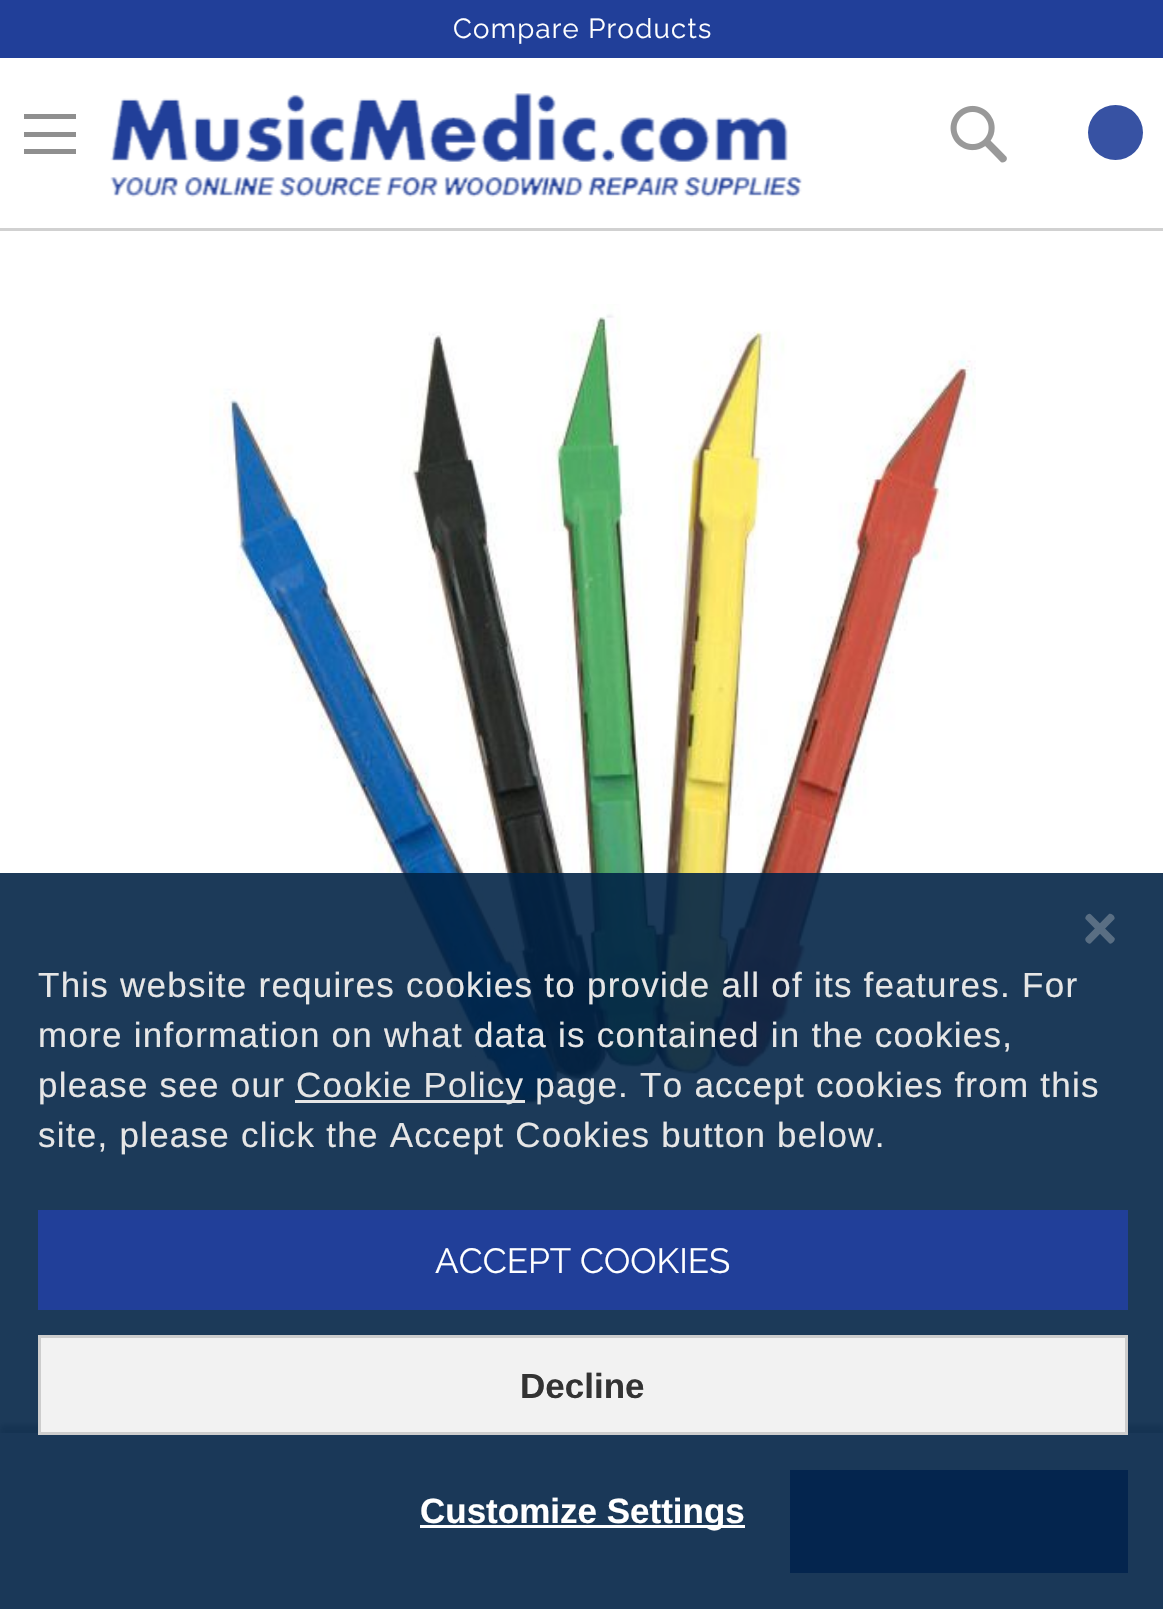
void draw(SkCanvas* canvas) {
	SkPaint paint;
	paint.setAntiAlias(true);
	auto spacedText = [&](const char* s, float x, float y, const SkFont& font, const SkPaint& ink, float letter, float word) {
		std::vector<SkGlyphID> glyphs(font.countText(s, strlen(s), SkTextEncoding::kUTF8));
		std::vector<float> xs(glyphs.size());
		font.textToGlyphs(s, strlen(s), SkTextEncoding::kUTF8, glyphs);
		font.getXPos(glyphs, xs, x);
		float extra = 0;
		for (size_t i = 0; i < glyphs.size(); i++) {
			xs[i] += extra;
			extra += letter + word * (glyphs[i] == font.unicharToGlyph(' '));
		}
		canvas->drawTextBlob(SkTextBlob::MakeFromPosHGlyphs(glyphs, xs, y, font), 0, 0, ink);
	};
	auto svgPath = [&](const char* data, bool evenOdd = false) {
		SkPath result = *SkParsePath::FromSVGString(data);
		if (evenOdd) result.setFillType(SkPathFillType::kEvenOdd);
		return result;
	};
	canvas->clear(0xffffffff);
	paint.setColor(0xff213f99);
	canvas->drawRect(SkRect::MakeXYWH(0, 0, 1163, 58), paint);
	SkFont f1(fontMgr->matchFamilyStyle("Raleway", SkFontStyle::Normal()), 27.5);
	f1.setSubpixel(true);
	paint.setColor(0xffffffff);
	spacedText("Compare Products", 453, 38, f1, paint, 1.25, 0);
	canvas->drawImageRect(SkImages::DeferredFromEncodedData(SkData::MakeFromFileName("img1.png")), SkRect::MakeXYWH(110, 93, 692, 104), SkSamplingOptions());
	canvas->drawImageRect(SkImages::DeferredFromEncodedData(SkData::MakeFromFileName("img2.png")), SkRect::MakeXYWH(950, 105, 57, 58), SkSamplingOptions());
	paint.setColor(0xffd1d1d1);
	canvas->drawRect(SkRect::MakeXYWH(0, 228, 1163, 3), paint);
	paint.setColor(0xff8f8f8f);
	canvas->drawPath(svgPath("M24 114V119H76V114ZM24 137H76V132H24ZM24 154H76V149H24Z"), paint);
	paint.setColor(0xff3752a3);
	canvas->drawCircle(1115.5, 132.5, 27.5, paint);
	canvas->drawImageRect(SkImages::DeferredFromEncodedData(SkData::MakeFromFileName("img3.png")), SkRect::MakeXYWH(209, 304, 767, 810), SkSamplingOptions());
	paint.setColor(0x40000000);
	paint.setMaskFilter(SkMaskFilter::MakeBlur(kNormal_SkBlurStyle, 2.5));
	canvas->drawRect(SkRect::MakeXYWH(0, 1425, 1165, 178), paint);
	paint.setMaskFilter(nullptr);
	paint.setColor(0xffe9ecf5);
	canvas->drawRect(SkRect::MakeXYWH(0, 1433, 1163, 176), paint);
	paint.setColor(0xff213f99);
	canvas->drawRect(SkRect::MakeXYWH(790, 1470, 338, 103), paint);
	paint.setColor(0xe3002244);
	canvas->drawRect(SkRect::MakeXYWH(0, 873, 1163, 736), paint);
	paint.setColor(0xff596e83);
	canvas->drawPath(svgPath("M1091 914.5L1114.5 938C1116 940 1112 944.5 1109.5 943.5L1085.5 919C1084.5 916.5 1089 912 1091 914.5Z"), paint);
	canvas->drawPath(svgPath("M1086 937.5L1109 914C1111.5 912.5 1115.5 916.5 1114.5 919L1090.5 943.5C1088 944.5 1083.5 940 1086 937.5Z"), paint);
	SkFont f2(fontMgr->matchFamilyStyle("Liberation Sans", SkFontStyle::Normal()), 35);
	f2.setSubpixel(true);
	paint.setColor(0xffe6e6e6);
	spacedText("This website requires cookies to provide all of its features. For", 38, 997, f2, paint, 1.25, 0);
	spacedText("more information on what data is contained in the cookies,", 38, 1047, f2, paint, 1.25, 0);
	spacedText("please see our", 38, 1097, f2, paint, 1.25, 0);
	canvas->drawRect(SkRect::MakeXYWH(295, 1100, 230, 3), paint);
	spacedText("Cookie Policy page. To accept cookies from this", 296, 1097, f2, paint, 1.25, 0);
	spacedText("site, please click the Accept Cookies button below.", 38, 1147, f2, paint, 1.25, 0);
	paint.setColor(0xff213f99);
	canvas->drawRect(SkRect::MakeXYWH(38, 1210, 1090, 100), paint);
	SkFont f3(fontMgr->matchFamilyStyle("Raleway", SkFontStyle::Normal()), 35);
	f3.setSubpixel(true);
	paint.setColor(0xffffffff);
	canvas->drawString("ACCEPT COOKIES", 435, 1273, f3, paint);
	paint.setColor(0xfff2f2f2);
	canvas->drawRect(SkRect::MakeXYWH(39.5, 1336.5, 1087, 97), paint);
	paint.setStroke(true);
	paint.setStrokeWidth(3);
	paint.setColor(0xffcdcdcd);
	canvas->drawRect(SkRect::MakeXYWH(39.5, 1336.5, 1087, 97), paint);
	SkFont f4(fontMgr->matchFamilyStyle("Liberation Sans", SkFontStyle::Bold()), 35);
	f4.setSubpixel(true);
	paint.setStroke(false);
	paint.setColor(0xff333333);
	canvas->drawString("Decline", 520, 1398, f4, paint);
	paint.setColor(0xffffffff);
	canvas->drawRect(SkRect::MakeXYWH(420, 1525, 325, 3), paint);
	canvas->drawString("Customize Settings", 420, 1523, f4, paint);
}
